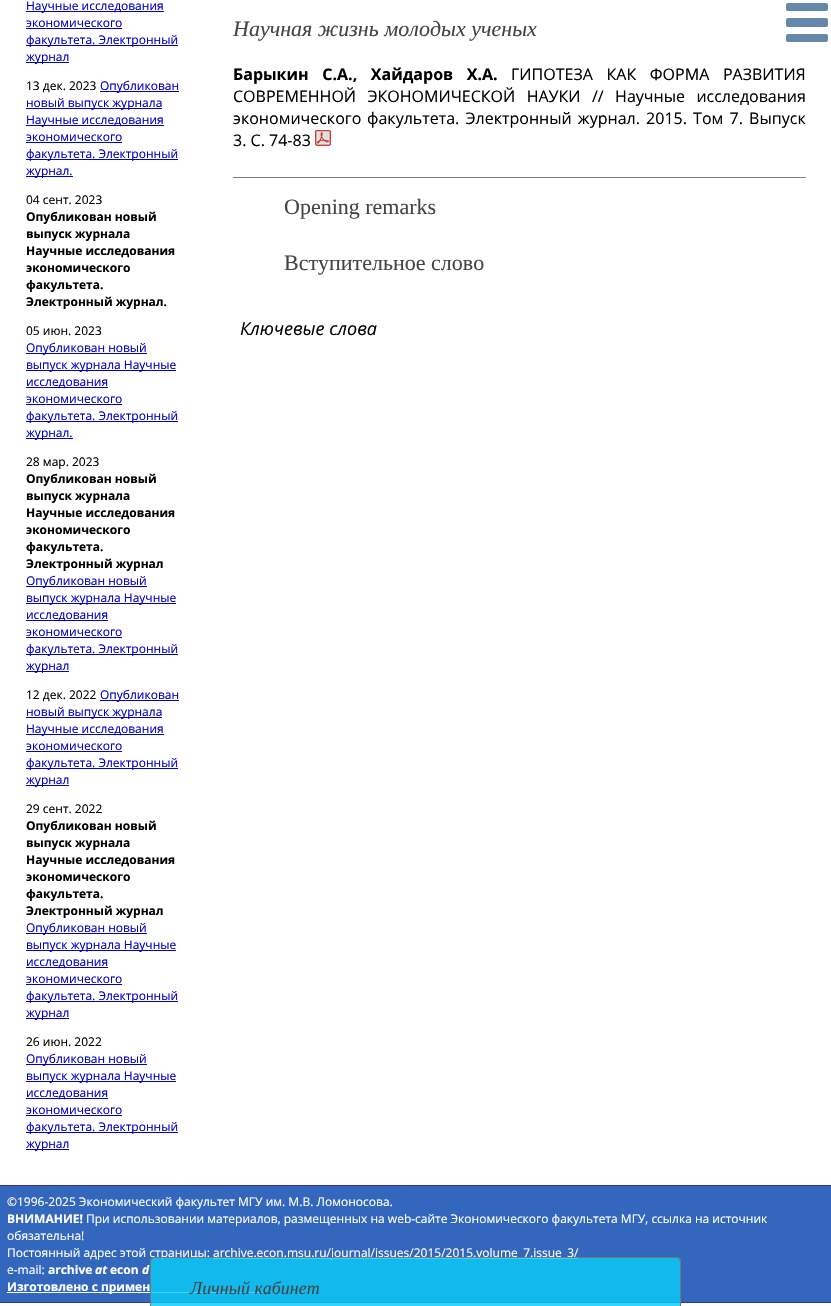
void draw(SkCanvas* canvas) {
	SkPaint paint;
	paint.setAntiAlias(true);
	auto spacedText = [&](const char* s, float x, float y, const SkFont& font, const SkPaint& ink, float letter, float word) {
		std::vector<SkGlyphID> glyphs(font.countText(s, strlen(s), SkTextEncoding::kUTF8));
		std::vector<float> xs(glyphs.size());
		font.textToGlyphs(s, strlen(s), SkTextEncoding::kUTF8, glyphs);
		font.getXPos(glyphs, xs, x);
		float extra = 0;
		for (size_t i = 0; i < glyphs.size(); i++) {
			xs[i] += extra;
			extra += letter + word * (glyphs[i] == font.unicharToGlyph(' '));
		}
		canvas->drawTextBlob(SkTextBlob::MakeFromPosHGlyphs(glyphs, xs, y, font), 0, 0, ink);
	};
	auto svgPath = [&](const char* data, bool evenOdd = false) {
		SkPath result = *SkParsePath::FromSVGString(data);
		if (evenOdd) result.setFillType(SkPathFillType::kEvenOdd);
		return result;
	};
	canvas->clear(0xffffffff);
	paint.setColor(0xff0002c6);
	canvas->drawRect(SkRect::MakeXYWH(26, 11, 138, 1), paint);
	SkFont f1(fontMgr->matchFamilyStyle("Open Sans", SkFontStyle::Normal()), 12);
	f1.setSubpixel(true);
	canvas->drawString("Научные исследования", 26, 10, f1, paint);
	canvas->drawString("экономического", 26, 27, f1, paint);
	canvas->drawRect(SkRect::MakeXYWH(26, 28, 96, 1), paint);
	canvas->drawRect(SkRect::MakeXYWH(26, 45, 152, 1), paint);
	canvas->drawString("факультета. Электронный", 26, 44, f1, paint);
	canvas->drawRect(SkRect::MakeXYWH(26, 62, 43, 1), paint);
	canvas->drawString("журнал", 26, 61, f1, paint);
	paint.setColor(0xff000000);
	canvas->drawString("13 дек. 2023", 26, 90, f1, paint);
	paint.setColor(0xff0002c6);
	canvas->drawRect(SkRect::MakeXYWH(100, 91, 79, 1), paint);
	canvas->drawString("Опубликован", 100, 90, f1, paint);
	canvas->drawRect(SkRect::MakeXYWH(26, 108, 136, 1), paint);
	canvas->drawString("новый выпуск журнала", 26, 107, f1, paint);
	canvas->drawRect(SkRect::MakeXYWH(26, 125, 138, 1), paint);
	canvas->drawString("Научные исследования", 26, 124, f1, paint);
	canvas->drawString("экономического", 26, 141, f1, paint);
	canvas->drawRect(SkRect::MakeXYWH(26, 142, 96, 1), paint);
	canvas->drawRect(SkRect::MakeXYWH(26, 159, 152, 1), paint);
	canvas->drawString("факультета. Электронный", 26, 158, f1, paint);
	canvas->drawRect(SkRect::MakeXYWH(26, 176, 47, 1), paint);
	canvas->drawString("журнал.", 26, 175, f1, paint);
	paint.setColor(0xff000000);
	canvas->drawString("04 сент. 2023", 26, 204, f1, paint);
	SkFont f2(fontMgr->matchFamilyStyle("Open Sans", SkFontStyle::Bold()), 12);
	f2.setSubpixel(true);
	canvas->drawString("Опубликован новый", 26, 221, f2, paint);
	canvas->drawString("выпуск журнала", 26, 238, f2, paint);
	canvas->drawString("Научные исследования", 26, 255, f2, paint);
	canvas->drawString("экономического", 26, 272, f2, paint);
	canvas->drawString("факультета.", 26, 289, f2, paint);
	canvas->drawString("Электронный журнал.", 26, 306, f2, paint);
	canvas->drawString("05 июн. 2023", 26, 335, f1, paint);
	paint.setColor(0xff0002c6);
	canvas->drawRect(SkRect::MakeXYWH(26, 353, 121, 1), paint);
	canvas->drawString("Опубликован новый", 26, 352, f1, paint);
	canvas->drawRect(SkRect::MakeXYWH(26, 370, 150, 1), paint);
	canvas->drawString("выпуск журнала Научные", 26, 369, f1, paint);
	canvas->drawRect(SkRect::MakeXYWH(26, 387, 82, 1), paint);
	canvas->drawString("исследования", 26, 386, f1, paint);
	canvas->drawString("экономического", 26, 403, f1, paint);
	canvas->drawRect(SkRect::MakeXYWH(26, 404, 96, 1), paint);
	canvas->drawRect(SkRect::MakeXYWH(26, 421, 152, 1), paint);
	canvas->drawString("факультета. Электронный", 26, 420, f1, paint);
	canvas->drawRect(SkRect::MakeXYWH(26, 438, 47, 1), paint);
	canvas->drawString("журнал.", 26, 437, f1, paint);
	paint.setColor(0xff000000);
	canvas->drawString("28 мар. 2023", 26, 466, f1, paint);
	canvas->drawString("Опубликован новый", 26, 483, f2, paint);
	canvas->drawString("выпуск журнала", 26, 500, f2, paint);
	canvas->drawString("Научные исследования", 26, 517, f2, paint);
	canvas->drawString("экономического", 26, 534, f2, paint);
	canvas->drawString("факультета.", 26, 551, f2, paint);
	canvas->drawString("Электронный журнал", 26, 568, f2, paint);
	paint.setColor(0xff0002c6);
	canvas->drawRect(SkRect::MakeXYWH(26, 586, 121, 1), paint);
	canvas->drawString("Опубликован новый", 26, 585, f1, paint);
	canvas->drawRect(SkRect::MakeXYWH(26, 603, 150, 1), paint);
	canvas->drawString("выпуск журнала Научные", 26, 602, f1, paint);
	canvas->drawRect(SkRect::MakeXYWH(26, 620, 82, 1), paint);
	canvas->drawString("исследования", 26, 619, f1, paint);
	canvas->drawString("экономического", 26, 636, f1, paint);
	canvas->drawRect(SkRect::MakeXYWH(26, 637, 96, 1), paint);
	canvas->drawRect(SkRect::MakeXYWH(26, 654, 152, 1), paint);
	canvas->drawString("факультета. Электронный", 26, 653, f1, paint);
	canvas->drawRect(SkRect::MakeXYWH(26, 671, 43, 1), paint);
	canvas->drawString("журнал", 26, 670, f1, paint);
	paint.setColor(0xff000000);
	canvas->drawString("12 дек. 2022", 26, 699, f1, paint);
	paint.setColor(0xff0002c6);
	canvas->drawRect(SkRect::MakeXYWH(100, 700, 79, 1), paint);
	canvas->drawString("Опубликован", 100, 699, f1, paint);
	canvas->drawRect(SkRect::MakeXYWH(26, 717, 136, 1), paint);
	canvas->drawString("новый выпуск журнала", 26, 716, f1, paint);
	canvas->drawRect(SkRect::MakeXYWH(26, 734, 138, 1), paint);
	canvas->drawString("Научные исследования", 26, 733, f1, paint);
	canvas->drawString("экономического", 26, 750, f1, paint);
	canvas->drawRect(SkRect::MakeXYWH(26, 751, 96, 1), paint);
	canvas->drawRect(SkRect::MakeXYWH(26, 768, 152, 1), paint);
	canvas->drawString("факультета. Электронный", 26, 767, f1, paint);
	canvas->drawRect(SkRect::MakeXYWH(26, 785, 43, 1), paint);
	canvas->drawString("журнал", 26, 784, f1, paint);
	paint.setColor(0xff000000);
	canvas->drawString("29 сент. 2022", 26, 813, f1, paint);
	canvas->drawString("Опубликован новый", 26, 830, f2, paint);
	canvas->drawString("выпуск журнала", 26, 847, f2, paint);
	canvas->drawString("Научные исследования", 26, 864, f2, paint);
	canvas->drawString("экономического", 26, 881, f2, paint);
	canvas->drawString("факультета.", 26, 898, f2, paint);
	canvas->drawString("Электронный журнал", 26, 915, f2, paint);
	paint.setColor(0xff0002c6);
	canvas->drawRect(SkRect::MakeXYWH(26, 933, 121, 1), paint);
	canvas->drawString("Опубликован новый", 26, 932, f1, paint);
	canvas->drawRect(SkRect::MakeXYWH(26, 950, 150, 1), paint);
	canvas->drawString("выпуск журнала Научные", 26, 949, f1, paint);
	canvas->drawRect(SkRect::MakeXYWH(26, 967, 82, 1), paint);
	canvas->drawString("исследования", 26, 966, f1, paint);
	canvas->drawString("экономического", 26, 983, f1, paint);
	canvas->drawRect(SkRect::MakeXYWH(26, 984, 96, 1), paint);
	canvas->drawRect(SkRect::MakeXYWH(26, 1001, 152, 1), paint);
	canvas->drawString("факультета. Электронный", 26, 1000, f1, paint);
	canvas->drawRect(SkRect::MakeXYWH(26, 1018, 43, 1), paint);
	canvas->drawString("журнал", 26, 1017, f1, paint);
	paint.setColor(0xff000000);
	canvas->drawString("26 июн. 2022", 26, 1046, f1, paint);
	paint.setColor(0xff0002c6);
	canvas->drawRect(SkRect::MakeXYWH(26, 1064, 121, 1), paint);
	canvas->drawString("Опубликован новый", 26, 1063, f1, paint);
	canvas->drawRect(SkRect::MakeXYWH(26, 1081, 150, 1), paint);
	canvas->drawString("выпуск журнала Научные", 26, 1080, f1, paint);
	canvas->drawRect(SkRect::MakeXYWH(26, 1098, 82, 1), paint);
	canvas->drawString("исследования", 26, 1097, f1, paint);
	canvas->drawString("экономического", 26, 1114, f1, paint);
	canvas->drawRect(SkRect::MakeXYWH(26, 1115, 96, 1), paint);
	canvas->drawRect(SkRect::MakeXYWH(26, 1132, 152, 1), paint);
	canvas->drawString("факультета. Электронный", 26, 1131, f1, paint);
	canvas->drawRect(SkRect::MakeXYWH(26, 1149, 43, 1), paint);
	canvas->drawString("журнал", 26, 1148, f1, paint);
	paint.setColor(0xff3367bd);
	canvas->drawRect(SkRect::MakeXYWH(0, 1186, 831, 116), paint);
	paint.setColor(0xff333399);
	canvas->drawRect(SkRect::MakeXYWH(0, 1302, 831, 1), paint);
	paint.setColor(0xffffffff);
	canvas->drawString("Постоянный адрес этой страницы:", 7, 1257, f1, paint);
	canvas->drawRect(SkRect::MakeXYWH(213, 1258, 365, 1), paint);
	canvas->drawString("archive.econ.msu.ru/journal/issues/2015/2015.volume_7.issue_3/", 213, 1257, f1, paint);
	canvas->drawRect(SkRect::MakeXYWH(7, 1292, 258, 1), paint);
	paint.setColor(0xd10acbf7);
	canvas->drawPath(svgPath("M155 1257H676C679 1257 681 1259 681 1262V1306H150V1262C150 1259 152 1257 155 1257Z"), paint);
	paint.setColor(0xff777777);
	canvas->drawPath(svgPath("M155 1257H676C679 1257 681 1259 681 1262V1306H150V1262C150 1259 152 1257 155 1257ZM155 1258H676C678 1258 680 1260 680 1262V1306H151V1262C151 1260 153 1258 155 1258Z", true), paint);
	SkFont f3(fontMgr->matchFamilyStyle("Liberation Serif", SkFontStyle::Italic()), 18);
	f3.setSubpixel(true);
	paint.setColor(0xff444444);
	canvas->drawString("Личный кабинет", 190, 1294, f3, paint);
	SkFont f4(fontMgr->matchFamilyStyle("Liberation Serif", SkFontStyle::Italic()), 22);
	f4.setSubpixel(true);
	canvas->drawString("Научная жизнь молодых ученых", 233, 36, f4, paint);
	SkFont f5(fontMgr->matchFamilyStyle("Open Sans", SkFontStyle::Bold()), 16);
	f5.setSubpixel(true);
	paint.setColor(0xff000000);
	spacedText("Барыкин С.А., Хайдаров Х.А.", 233, 80, f5, paint, 0, 9.5);
	SkFont f6(fontMgr->matchFamilyStyle("Open Sans", SkFontStyle::Normal()), 16);
	f6.setSubpixel(true);
	spacedText("ГИПОТЕЗА КАК ФОРМА РАЗВИТИЯ", 511, 80, f6, paint, 0, 9.5);
	spacedText("СОВРЕМЕННОЙ ЭКОНОМИЧЕСКОЙ НАУКИ // Научные исследования", 233, 102, f6, paint, 0, 7.25);
	canvas->drawString("экономического", 233, 124, f6, paint);
	spacedText("факультета. Электронный журнал. 2015. Том 7. Выпуск", 367, 124, f6, paint, 0, 2);
	canvas->drawString("3. С. 74-83", 233, 146, f6, paint);
	canvas->drawImageRect(SkImages::DeferredFromEncodedData(SkData::MakeFromFileName("img1.png")), SkRect::MakeXYWH(315, 130, 16, 16), SkSamplingOptions());
	paint.setColor(0xff7e7e7e);
	canvas->drawRect(SkRect::MakeXYWH(233, 177, 573, 1), paint);
	SkFont f7(fontMgr->matchFamilyStyle("Liberation Serif", SkFontStyle::Normal()), 22);
	f7.setSubpixel(true);
	paint.setColor(0xff444444);
	canvas->drawString("Opening remarks", 284, 214, f7, paint);
	canvas->drawString("Вступительное слово", 284, 270, f7, paint);
	SkFont f8(fontMgr->matchFamilyStyle("Open Sans", SkFontStyle::Italic()), 18);
	f8.setSubpixel(true);
	paint.setColor(0xff000000);
	canvas->drawString("Ключевые слова", 240, 335, f8, paint);
	paint.setColor(0xff6688aa);
	canvas->drawRoundRect(SkRect::MakeXYWH(786, 3, 42, 8), 2, 2, paint);
	canvas->drawRoundRect(SkRect::MakeXYWH(786, 18, 42, 9), 2, 2, paint);
	canvas->drawRoundRect(SkRect::MakeXYWH(786, 34, 42, 8), 2, 2, paint);
	paint.setColor(0xff333399);
	canvas->drawRect(SkRect::MakeXYWH(0, 1185, 831, 1), paint);
	paint.setColor(0xffffffff);
	canvas->drawString("©1996-2025 Экономический факультет МГУ им. М.В. Ломоносова.", 7, 1206, f1, paint);
	canvas->drawString("ВНИМАНИЕ!", 7, 1223, f2, paint);
	canvas->drawString("При использовании материалов, размещенных на web-сайте Экономического факультета МГУ, ссылка на источник", 86, 1223, f1, paint);
	canvas->drawString("обязательна!", 7, 1240, f1, paint);
	canvas->drawString("e-mail:", 7, 1274, f1, paint);
	canvas->drawString("archive", 48, 1274, f2, paint);
	SkFont f9(fontMgr->matchFamilyStyle("Open Sans", SkFontStyle::BoldItalic()), 12);
	f9.setSubpixel(true);
	canvas->drawString("at", 95, 1274, f9, paint);
	canvas->drawString("econ", 110, 1274, f2, paint);
	canvas->drawString("d", 142, 1274, f9, paint);
	canvas->drawString("Изготовлено с примен", 7, 1291, f2, paint);
}
